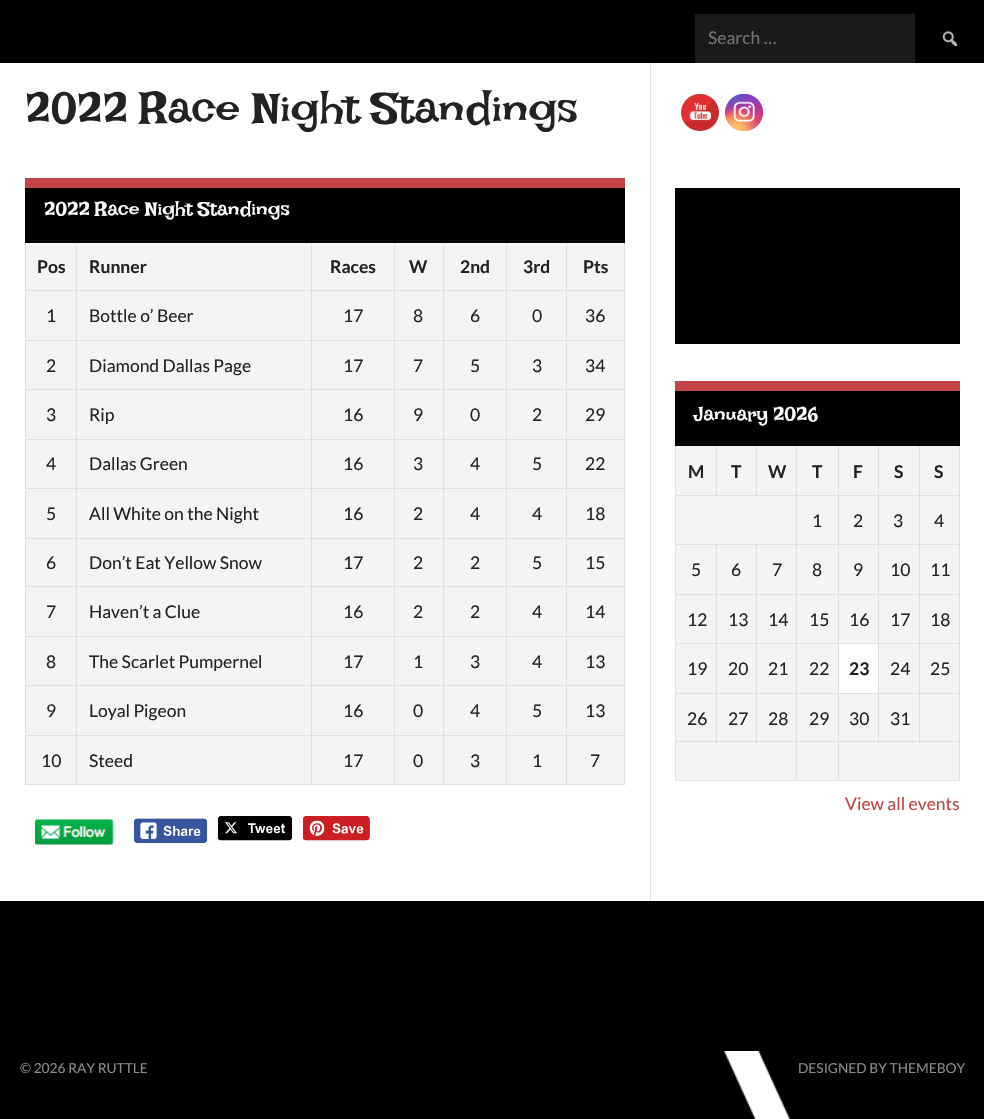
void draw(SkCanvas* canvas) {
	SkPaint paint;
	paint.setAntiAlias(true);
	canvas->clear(0xffffffff);
	canvas->drawImageRect(SkImages::DeferredFromEncodedData(SkData::MakeFromFileName("img1.png")), SkRect::MakeXYWH(0, 1051, 984, 68), SkSamplingOptions());
	paint.setColor(0xff000000);
	canvas->drawRect(SkRect::MakeXYWH(0, 0, 984, 63), paint);
	paint.setColor(0xff1a1a1a);
	canvas->drawRect(SkRect::MakeXYWH(695, 14, 220, 49), paint);
	SkFont f1(fontMgr->matchFamilyStyle("Lato", SkFontStyle::Normal()), 17.5);
	f1.setSubpixel(true);
	paint.setColor(0xff757575);
	canvas->drawString("Search …", 708, 44, f1, paint);
	canvas->drawImageRect(SkImages::DeferredFromEncodedData(SkData::MakeFromFileName("img2.png")), SkRect::MakeXYWH(942, 31, 16, 16), SkSamplingOptions());
	paint.setColor(0xffe0e0e0);
	canvas->drawRect(SkRect::MakeXYWH(650, 63, 1, 838), paint);
	SkFont f2(fontMgr->matchFamilyStyle("Lakki Reddy", SkFontStyle::Normal()), 45);
	f2.setSubpixel(true);
	paint.setColor(0xff222222);
	canvas->drawString("2022 Race Night Standings", 25, 124, f2, paint);
	paint.setColor(0xffe0e0e0);
	canvas->drawRect(SkRect::MakeXYWH(624, 241, 1, 544), paint);
	canvas->drawRect(SkRect::MakeXYWH(25, 784, 600, 1), paint);
	canvas->drawRect(SkRect::MakeXYWH(25, 241, 1, 544), paint);
	paint.setColor(0xfff4f4f4);
	canvas->drawRect(SkRect::MakeXYWH(26, 243, 598, 541), paint);
	paint.setColor(0xffe0e0e0);
	canvas->drawRect(SkRect::MakeXYWH(566, 290, 59, 1), paint);
	canvas->drawRect(SkRect::MakeXYWH(566, 340, 59, 1), paint);
	canvas->drawRect(SkRect::MakeXYWH(566, 389, 59, 1), paint);
	canvas->drawRect(SkRect::MakeXYWH(566, 439, 59, 1), paint);
	canvas->drawRect(SkRect::MakeXYWH(566, 488, 59, 1), paint);
	canvas->drawRect(SkRect::MakeXYWH(566, 538, 59, 1), paint);
	canvas->drawRect(SkRect::MakeXYWH(566, 586, 59, 1), paint);
	canvas->drawRect(SkRect::MakeXYWH(566, 636, 59, 1), paint);
	canvas->drawRect(SkRect::MakeXYWH(566, 685, 59, 1), paint);
	canvas->drawRect(SkRect::MakeXYWH(566, 735, 59, 1), paint);
	canvas->drawRect(SkRect::MakeXYWH(566, 735, 1, 50), paint);
	canvas->drawRect(SkRect::MakeXYWH(506, 735, 62, 1), paint);
	canvas->drawRect(SkRect::MakeXYWH(566, 685, 1, 51), paint);
	canvas->drawRect(SkRect::MakeXYWH(506, 685, 62, 1), paint);
	canvas->drawRect(SkRect::MakeXYWH(566, 636, 1, 50), paint);
	canvas->drawRect(SkRect::MakeXYWH(506, 636, 62, 1), paint);
	canvas->drawRect(SkRect::MakeXYWH(566, 586, 1, 52), paint);
	canvas->drawRect(SkRect::MakeXYWH(506, 586, 62, 1), paint);
	canvas->drawRect(SkRect::MakeXYWH(566, 538, 1, 50), paint);
	canvas->drawRect(SkRect::MakeXYWH(506, 538, 62, 1), paint);
	canvas->drawRect(SkRect::MakeXYWH(566, 488, 1, 51), paint);
	canvas->drawRect(SkRect::MakeXYWH(506, 488, 62, 1), paint);
	canvas->drawRect(SkRect::MakeXYWH(566, 439, 1, 50), paint);
	canvas->drawRect(SkRect::MakeXYWH(506, 439, 62, 1), paint);
	canvas->drawRect(SkRect::MakeXYWH(566, 389, 1, 51), paint);
	canvas->drawRect(SkRect::MakeXYWH(506, 389, 62, 1), paint);
	canvas->drawRect(SkRect::MakeXYWH(566, 340, 1, 50), paint);
	canvas->drawRect(SkRect::MakeXYWH(506, 340, 62, 1), paint);
	canvas->drawRect(SkRect::MakeXYWH(566, 290, 1, 51), paint);
	canvas->drawRect(SkRect::MakeXYWH(506, 290, 62, 1), paint);
	canvas->drawRect(SkRect::MakeXYWH(506, 735, 1, 50), paint);
	canvas->drawRect(SkRect::MakeXYWH(443, 735, 65, 1), paint);
	canvas->drawRect(SkRect::MakeXYWH(506, 685, 1, 51), paint);
	canvas->drawRect(SkRect::MakeXYWH(443, 685, 65, 1), paint);
	canvas->drawRect(SkRect::MakeXYWH(506, 636, 1, 50), paint);
	canvas->drawRect(SkRect::MakeXYWH(443, 636, 65, 1), paint);
	canvas->drawRect(SkRect::MakeXYWH(506, 586, 1, 52), paint);
	canvas->drawRect(SkRect::MakeXYWH(443, 586, 65, 1), paint);
	canvas->drawRect(SkRect::MakeXYWH(506, 538, 1, 50), paint);
	canvas->drawRect(SkRect::MakeXYWH(443, 538, 65, 1), paint);
	canvas->drawRect(SkRect::MakeXYWH(506, 488, 1, 51), paint);
	canvas->drawRect(SkRect::MakeXYWH(443, 488, 65, 1), paint);
	canvas->drawRect(SkRect::MakeXYWH(506, 439, 1, 50), paint);
	canvas->drawRect(SkRect::MakeXYWH(443, 439, 65, 1), paint);
	canvas->drawRect(SkRect::MakeXYWH(506, 389, 1, 51), paint);
	canvas->drawRect(SkRect::MakeXYWH(443, 389, 65, 1), paint);
	canvas->drawRect(SkRect::MakeXYWH(506, 340, 1, 50), paint);
	canvas->drawRect(SkRect::MakeXYWH(443, 340, 65, 1), paint);
	canvas->drawRect(SkRect::MakeXYWH(506, 290, 1, 51), paint);
	canvas->drawRect(SkRect::MakeXYWH(443, 290, 65, 1), paint);
	canvas->drawRect(SkRect::MakeXYWH(443, 735, 1, 50), paint);
	canvas->drawRect(SkRect::MakeXYWH(394, 735, 50, 1), paint);
	canvas->drawRect(SkRect::MakeXYWH(443, 685, 1, 51), paint);
	canvas->drawRect(SkRect::MakeXYWH(394, 685, 50, 1), paint);
	canvas->drawRect(SkRect::MakeXYWH(443, 636, 1, 50), paint);
	canvas->drawRect(SkRect::MakeXYWH(394, 636, 50, 1), paint);
	canvas->drawRect(SkRect::MakeXYWH(443, 586, 1, 52), paint);
	canvas->drawRect(SkRect::MakeXYWH(394, 586, 50, 1), paint);
	canvas->drawRect(SkRect::MakeXYWH(443, 538, 1, 50), paint);
	canvas->drawRect(SkRect::MakeXYWH(394, 538, 50, 1), paint);
	canvas->drawRect(SkRect::MakeXYWH(443, 488, 1, 51), paint);
	canvas->drawRect(SkRect::MakeXYWH(394, 488, 50, 1), paint);
	canvas->drawRect(SkRect::MakeXYWH(443, 439, 1, 50), paint);
	canvas->drawRect(SkRect::MakeXYWH(394, 439, 50, 1), paint);
	canvas->drawRect(SkRect::MakeXYWH(443, 389, 1, 51), paint);
	canvas->drawRect(SkRect::MakeXYWH(394, 389, 50, 1), paint);
	canvas->drawRect(SkRect::MakeXYWH(443, 340, 1, 50), paint);
	canvas->drawRect(SkRect::MakeXYWH(394, 340, 50, 1), paint);
	canvas->drawRect(SkRect::MakeXYWH(443, 290, 1, 51), paint);
	canvas->drawRect(SkRect::MakeXYWH(394, 290, 50, 1), paint);
	canvas->drawRect(SkRect::MakeXYWH(394, 735, 1, 50), paint);
	canvas->drawRect(SkRect::MakeXYWH(311, 735, 84, 1), paint);
	canvas->drawRect(SkRect::MakeXYWH(394, 685, 1, 51), paint);
	canvas->drawRect(SkRect::MakeXYWH(311, 685, 84, 1), paint);
	canvas->drawRect(SkRect::MakeXYWH(394, 636, 1, 50), paint);
	canvas->drawRect(SkRect::MakeXYWH(311, 636, 84, 1), paint);
	canvas->drawRect(SkRect::MakeXYWH(394, 586, 1, 52), paint);
	canvas->drawRect(SkRect::MakeXYWH(311, 586, 84, 1), paint);
	canvas->drawRect(SkRect::MakeXYWH(394, 538, 1, 50), paint);
	canvas->drawRect(SkRect::MakeXYWH(311, 538, 84, 1), paint);
	canvas->drawRect(SkRect::MakeXYWH(394, 488, 1, 51), paint);
	canvas->drawRect(SkRect::MakeXYWH(311, 488, 84, 1), paint);
	canvas->drawRect(SkRect::MakeXYWH(394, 439, 1, 50), paint);
	canvas->drawRect(SkRect::MakeXYWH(311, 439, 84, 1), paint);
	canvas->drawRect(SkRect::MakeXYWH(394, 389, 1, 51), paint);
	canvas->drawRect(SkRect::MakeXYWH(311, 389, 84, 1), paint);
	canvas->drawRect(SkRect::MakeXYWH(394, 340, 1, 50), paint);
	canvas->drawRect(SkRect::MakeXYWH(311, 340, 84, 1), paint);
	canvas->drawRect(SkRect::MakeXYWH(394, 290, 1, 51), paint);
	canvas->drawRect(SkRect::MakeXYWH(311, 290, 84, 1), paint);
	canvas->drawRect(SkRect::MakeXYWH(311, 735, 1, 50), paint);
	canvas->drawRect(SkRect::MakeXYWH(76, 735, 237, 1), paint);
	canvas->drawRect(SkRect::MakeXYWH(311, 685, 1, 51), paint);
	canvas->drawRect(SkRect::MakeXYWH(76, 685, 237, 1), paint);
	canvas->drawRect(SkRect::MakeXYWH(311, 636, 1, 50), paint);
	canvas->drawRect(SkRect::MakeXYWH(76, 636, 237, 1), paint);
	canvas->drawRect(SkRect::MakeXYWH(311, 586, 1, 52), paint);
	canvas->drawRect(SkRect::MakeXYWH(76, 586, 237, 1), paint);
	canvas->drawRect(SkRect::MakeXYWH(311, 538, 1, 50), paint);
	canvas->drawRect(SkRect::MakeXYWH(76, 538, 237, 1), paint);
	canvas->drawRect(SkRect::MakeXYWH(311, 488, 1, 51), paint);
	canvas->drawRect(SkRect::MakeXYWH(76, 488, 237, 1), paint);
	canvas->drawRect(SkRect::MakeXYWH(311, 439, 1, 50), paint);
	canvas->drawRect(SkRect::MakeXYWH(76, 439, 237, 1), paint);
	canvas->drawRect(SkRect::MakeXYWH(311, 389, 1, 51), paint);
	canvas->drawRect(SkRect::MakeXYWH(76, 389, 237, 1), paint);
	canvas->drawRect(SkRect::MakeXYWH(311, 340, 1, 50), paint);
	canvas->drawRect(SkRect::MakeXYWH(76, 340, 237, 1), paint);
	canvas->drawRect(SkRect::MakeXYWH(311, 290, 1, 51), paint);
	canvas->drawRect(SkRect::MakeXYWH(76, 290, 237, 1), paint);
	canvas->drawRect(SkRect::MakeXYWH(76, 735, 1, 50), paint);
	canvas->drawRect(SkRect::MakeXYWH(25, 735, 53, 1), paint);
	canvas->drawRect(SkRect::MakeXYWH(76, 685, 1, 51), paint);
	canvas->drawRect(SkRect::MakeXYWH(25, 685, 53, 1), paint);
	canvas->drawRect(SkRect::MakeXYWH(76, 636, 1, 50), paint);
	canvas->drawRect(SkRect::MakeXYWH(25, 636, 53, 1), paint);
	canvas->drawRect(SkRect::MakeXYWH(76, 586, 1, 52), paint);
	canvas->drawRect(SkRect::MakeXYWH(25, 586, 53, 1), paint);
	canvas->drawRect(SkRect::MakeXYWH(76, 538, 1, 50), paint);
	canvas->drawRect(SkRect::MakeXYWH(25, 538, 53, 1), paint);
	canvas->drawRect(SkRect::MakeXYWH(76, 488, 1, 51), paint);
	canvas->drawRect(SkRect::MakeXYWH(25, 488, 53, 1), paint);
	canvas->drawRect(SkRect::MakeXYWH(76, 439, 1, 50), paint);
	canvas->drawRect(SkRect::MakeXYWH(25, 439, 53, 1), paint);
	canvas->drawRect(SkRect::MakeXYWH(76, 389, 1, 51), paint);
	canvas->drawRect(SkRect::MakeXYWH(25, 389, 53, 1), paint);
	canvas->drawRect(SkRect::MakeXYWH(76, 340, 1, 50), paint);
	canvas->drawRect(SkRect::MakeXYWH(25, 340, 53, 1), paint);
	canvas->drawRect(SkRect::MakeXYWH(76, 290, 1, 51), paint);
	canvas->drawRect(SkRect::MakeXYWH(25, 290, 53, 1), paint);
	canvas->drawRect(SkRect::MakeXYWH(76, 241, 1, 50), paint);
	canvas->drawRect(SkRect::MakeXYWH(311, 241, 1, 50), paint);
	canvas->drawRect(SkRect::MakeXYWH(394, 241, 1, 50), paint);
	canvas->drawRect(SkRect::MakeXYWH(443, 241, 1, 50), paint);
	canvas->drawRect(SkRect::MakeXYWH(506, 241, 1, 50), paint);
	canvas->drawRect(SkRect::MakeXYWH(566, 241, 1, 50), paint);
	paint.setColor(0xff000000);
	canvas->drawRect(SkRect::MakeXYWH(25, 188, 600, 55), paint);
	paint.setColor(0xffc14444);
	canvas->drawRect(SkRect::MakeXYWH(25, 178, 600, 10), paint);
	SkFont f3(fontMgr->matchFamilyStyle("Lakki Reddy", SkFontStyle::Normal()), 20);
	f3.setSubpixel(true);
	paint.setColor(0xffffffff);
	canvas->drawString("2022 Race Night Standings", 44, 216, f3, paint);
	SkFont f4(fontMgr->matchFamilyStyle("Lato", SkFontStyle::Bold()), 17.5);
	f4.setSubpixel(true);
	paint.setColor(0xff222222);
	canvas->drawString("Pos", 37, 273, f4, paint);
	canvas->drawString("Runner", 89, 273, f4, paint);
	canvas->drawString("Races", 330, 273, f4, paint);
	canvas->drawString("W", 409, 273, f4, paint);
	canvas->drawString("2nd", 460, 273, f4, paint);
	canvas->drawString("3rd", 523, 273, f4, paint);
	canvas->drawString("Pts", 583, 273, f4, paint);
	canvas->drawString("1", 46, 322, f1, paint);
	canvas->drawString("Bottle o’ Beer", 89, 322, f1, paint);
	canvas->drawString("17", 343, 322, f1, paint);
	canvas->drawString("8", 413, 322, f1, paint);
	canvas->drawString("6", 470, 322, f1, paint);
	canvas->drawString("0", 532, 322, f1, paint);
	canvas->drawString("36", 585, 322, f1, paint);
	canvas->drawString("2", 46, 372, f1, paint);
	canvas->drawString("Diamond Dallas Page", 89, 372, f1, paint);
	canvas->drawString("17", 343, 372, f1, paint);
	canvas->drawString("7", 413, 372, f1, paint);
	canvas->drawString("5", 470, 372, f1, paint);
	canvas->drawString("3", 532, 372, f1, paint);
	canvas->drawString("34", 585, 372, f1, paint);
	canvas->drawString("3", 46, 421, f1, paint);
	canvas->drawString("Rip", 89, 421, f1, paint);
	canvas->drawString("16", 343, 421, f1, paint);
	canvas->drawString("9", 413, 421, f1, paint);
	canvas->drawString("0", 470, 421, f1, paint);
	canvas->drawString("2", 532, 421, f1, paint);
	canvas->drawString("29", 585, 421, f1, paint);
	canvas->drawString("4", 46, 470, f1, paint);
	canvas->drawString("Dallas Green", 89, 470, f1, paint);
	canvas->drawString("16", 343, 470, f1, paint);
	canvas->drawString("3", 413, 470, f1, paint);
	canvas->drawString("4", 470, 470, f1, paint);
	canvas->drawString("5", 532, 470, f1, paint);
	canvas->drawString("22", 585, 470, f1, paint);
	canvas->drawString("5", 46, 520, f1, paint);
	canvas->drawString("All White on the Night", 89, 520, f1, paint);
	canvas->drawString("16", 343, 520, f1, paint);
	canvas->drawString("2", 413, 520, f1, paint);
	canvas->drawString("4", 470, 520, f1, paint);
	canvas->drawString("4", 532, 520, f1, paint);
	canvas->drawString("18", 585, 520, f1, paint);
	canvas->drawString("6", 46, 569, f1, paint);
	canvas->drawString("Don’t Eat Yellow Snow", 89, 569, f1, paint);
	canvas->drawString("17", 343, 569, f1, paint);
	canvas->drawString("2", 413, 569, f1, paint);
	canvas->drawString("2", 470, 569, f1, paint);
	canvas->drawString("5", 532, 569, f1, paint);
	canvas->drawString("15", 585, 569, f1, paint);
	canvas->drawString("7", 46, 618, f1, paint);
	canvas->drawString("Haven’t a Clue", 89, 618, f1, paint);
	canvas->drawString("16", 343, 618, f1, paint);
	canvas->drawString("2", 413, 618, f1, paint);
	canvas->drawString("2", 470, 618, f1, paint);
	canvas->drawString("4", 532, 618, f1, paint);
	canvas->drawString("14", 585, 618, f1, paint);
	canvas->drawString("8", 46, 668, f1, paint);
	canvas->drawString("The Scarlet Pumpernel", 89, 668, f1, paint);
	canvas->drawString("17", 343, 668, f1, paint);
	canvas->drawString("1", 413, 668, f1, paint);
	canvas->drawString("3", 470, 668, f1, paint);
	canvas->drawString("4", 532, 668, f1, paint);
	canvas->drawString("13", 585, 668, f1, paint);
	canvas->drawString("9", 46, 717, f1, paint);
	canvas->drawString("Loyal Pigeon", 89, 717, f1, paint);
	canvas->drawString("16", 343, 717, f1, paint);
	canvas->drawString("0", 413, 717, f1, paint);
	canvas->drawString("4", 470, 717, f1, paint);
	canvas->drawString("5", 532, 717, f1, paint);
	canvas->drawString("13", 585, 717, f1, paint);
	canvas->drawString("10", 41, 767, f1, paint);
	canvas->drawString("Steed", 89, 767, f1, paint);
	canvas->drawString("17", 343, 767, f1, paint);
	canvas->drawString("0", 413, 767, f1, paint);
	canvas->drawString("3", 470, 767, f1, paint);
	canvas->drawString("1", 532, 767, f1, paint);
	canvas->drawString("7", 590, 767, f1, paint);
	canvas->drawImageRect(SkImages::DeferredFromEncodedData(SkData::MakeFromFileName("img3.png")), SkRect::MakeXYWH(35, 819, 79, 26), SkSamplingOptions());
	canvas->drawImageRect(SkImages::DeferredFromEncodedData(SkData::MakeFromFileName("img4.png")), SkRect::MakeXYWH(134, 818, 74, 25), SkSamplingOptions());
	canvas->drawImageRect(SkImages::DeferredFromEncodedData(SkData::MakeFromFileName("img5.png")), SkRect::MakeXYWH(218, 816, 75, 25), SkSamplingOptions());
	canvas->drawImageRect(SkImages::DeferredFromEncodedData(SkData::MakeFromFileName("img6.png")), SkRect::MakeXYWH(303, 816, 67, 25), SkSamplingOptions());
	{
		const SkColor colors[] = {0xffe02f2f, 0xffe02f2f, 0xffc92a2a, 0xffc92a2a};
		const float stops[] = {0.14, 0.49, 0.49, 0.85};
		const SkPoint ends[] = {{684, 92}, {716, 133}};
		paint.setShader(SkGradientShader::MakeLinear(ends, colors, stops, 4, SkTileMode::kClamp));
		paint.setAlpha(255);
	}
	canvas->drawRoundRect(SkRect::MakeXYWH(681, 94, 38, 37), 18.5, 18.5, paint);
	canvas->drawImageRect(SkImages::DeferredFromEncodedData(SkData::MakeFromFileName("img7.png")), SkRect::MakeXYWH(689, 102, 22, 19), SkSamplingOptions());
	{
		const SkColor colors[] = {0xff6559ca, 0xffbc318f, 0xffe33f5f, 0xfff77638, 0xfffec66d};
		const float stops[] = {0, 0.3, 0.5, 0.7, 1};
		const SkPoint ends[] = {{744, 94}, {744, 131}};
		paint.setShader(SkGradientShader::MakeLinear(ends, colors, stops, 5, SkTileMode::kClamp));
		paint.setAlpha(255);
	}
	canvas->drawRoundRect(SkRect::MakeXYWH(725, 94, 38, 37), 18.5, 18.5, paint);
	{
		const SkColor colors[] = {0xffd9317a, 0x00d9317a};
		const float stops[] = {0, 1};
		paint.setShader(SkGradientShader::MakeRadial({763, 131}, 53, colors, stops, 2, SkTileMode::kClamp));
		paint.setAlpha(255);
	}
	canvas->drawRoundRect(SkRect::MakeXYWH(725, 94, 38, 37), 18.5, 18.5, paint);
	{
		const SkColor colors[] = {0xff893dc2, 0x00893dc2};
		const float stops[] = {0, 0.5};
		SkMatrix m = SkMatrix::Translate(748, 86).preScale(32, 64);
		paint.setShader(SkGradientShader::MakeRadial({0, 0}, 1, colors, stops, 2, SkTileMode::kClamp, 0, &m));
		paint.setAlpha(255);
	}
	canvas->drawRoundRect(SkRect::MakeXYWH(725, 94, 38, 37), 18.5, 18.5, paint);
	{
		const SkColor colors[] = {0xff893dc2, 0x00893dc2};
		const float stops[] = {0, 0.5};
		paint.setShader(SkGradientShader::MakeRadial({763, 94}, 53, colors, stops, 2, SkTileMode::kClamp));
		paint.setAlpha(255);
	}
	canvas->drawRoundRect(SkRect::MakeXYWH(725, 94, 38, 37), 18.5, 18.5, paint);
	{
		const SkColor colors[] = {0xff5258cf, 0x005258cf};
		const float stops[] = {0, 0.5};
		SkMatrix m = SkMatrix::Translate(733, 75).preScale(42, 80);
		paint.setShader(SkGradientShader::MakeRadial({0, 0}, 1, colors, stops, 2, SkTileMode::kClamp, 0, &m));
		paint.setAlpha(255);
	}
	canvas->drawRoundRect(SkRect::MakeXYWH(725, 94, 38, 37), 18.5, 18.5, paint);
	{
		const SkColor colors[] = {0xff5258cf, 0x005258cf};
		const float stops[] = {0, 0.5};
		SkMatrix m = SkMatrix::Translate(725, 84).preScale(53, 66);
		paint.setShader(SkGradientShader::MakeRadial({0, 0}, 1, colors, stops, 2, SkTileMode::kClamp, 0, &m));
		paint.setAlpha(255);
	}
	canvas->drawRoundRect(SkRect::MakeXYWH(725, 94, 38, 37), 18.5, 18.5, paint);
	{
		const SkColor colors[] = {0xfffec564, 0x00fec564};
		const float stops[] = {0, 0.5};
		paint.setShader(SkGradientShader::MakeRadial({725, 146}, 65, colors, stops, 2, SkTileMode::kClamp));
		paint.setAlpha(255);
	}
	canvas->drawRoundRect(SkRect::MakeXYWH(725, 94, 38, 37), 18.5, 18.5, paint);
	{
		const SkColor colors[] = {0xfffec564, 0x00fec564};
		const float stops[] = {0, 0.5};
		paint.setShader(SkGradientShader::MakeRadial({738, 128}, 42, colors, stops, 2, SkTileMode::kClamp));
		paint.setAlpha(255);
	}
	canvas->drawRoundRect(SkRect::MakeXYWH(725, 94, 38, 37), 18.5, 18.5, paint);
	canvas->drawImageRect(SkImages::DeferredFromEncodedData(SkData::MakeFromFileName("img8.png")), SkRect::MakeXYWH(733, 101, 22, 21), SkSamplingOptions());
	paint.setShader(nullptr);
	paint.setColor(0xff000000);
	canvas->drawRect(SkRect::MakeXYWH(675, 188, 285, 156), paint);
	paint.setColor(0xfff4f4f4);
	canvas->drawRect(SkRect::MakeXYWH(676, 446, 283, 334), paint);
	paint.setColor(0xffe0e0e0);
	canvas->drawRect(SkRect::MakeXYWH(959, 446, 1, 335), paint);
	canvas->drawRect(SkRect::MakeXYWH(675, 780, 285, 1), paint);
	canvas->drawRect(SkRect::MakeXYWH(675, 446, 1, 335), paint);
	canvas->drawRect(SkRect::MakeXYWH(919, 495, 41, 1), paint);
	canvas->drawRect(SkRect::MakeXYWH(919, 544, 41, 1), paint);
	canvas->drawRect(SkRect::MakeXYWH(919, 594, 41, 1), paint);
	canvas->drawRect(SkRect::MakeXYWH(919, 643, 41, 1), paint);
	canvas->drawRect(SkRect::MakeXYWH(919, 693, 41, 1), paint);
	canvas->drawRect(SkRect::MakeXYWH(919, 741, 41, 1), paint);
	canvas->drawRect(SkRect::MakeXYWH(919, 693, 1, 50), paint);
	canvas->drawRect(SkRect::MakeXYWH(878, 693, 42, 1), paint);
	canvas->drawRect(SkRect::MakeXYWH(919, 643, 1, 51), paint);
	canvas->drawRect(SkRect::MakeXYWH(878, 643, 42, 1), paint);
	canvas->drawRect(SkRect::MakeXYWH(919, 594, 1, 50), paint);
	canvas->drawRect(SkRect::MakeXYWH(878, 594, 42, 1), paint);
	canvas->drawRect(SkRect::MakeXYWH(919, 544, 1, 51), paint);
	canvas->drawRect(SkRect::MakeXYWH(878, 544, 42, 1), paint);
	canvas->drawRect(SkRect::MakeXYWH(919, 495, 1, 50), paint);
	canvas->drawRect(SkRect::MakeXYWH(878, 495, 42, 1), paint);
	canvas->drawRect(SkRect::MakeXYWH(878, 741, 42, 1), paint);
	canvas->drawRect(SkRect::MakeXYWH(878, 693, 1, 50), paint);
	canvas->drawRect(SkRect::MakeXYWH(838, 693, 41, 1), paint);
	canvas->drawRect(SkRect::MakeXYWH(878, 643, 1, 51), paint);
	canvas->drawRect(SkRect::MakeXYWH(838, 643, 41, 1), paint);
	canvas->drawRect(SkRect::MakeXYWH(878, 594, 1, 50), paint);
	canvas->drawRect(SkRect::MakeXYWH(838, 594, 41, 1), paint);
	canvas->drawRect(SkRect::MakeXYWH(878, 544, 1, 51), paint);
	canvas->drawRect(SkRect::MakeXYWH(838, 544, 41, 1), paint);
	canvas->drawRect(SkRect::MakeXYWH(878, 495, 1, 50), paint);
	canvas->drawRect(SkRect::MakeXYWH(838, 495, 41, 1), paint);
	canvas->drawRect(SkRect::MakeXYWH(838, 741, 41, 1), paint);
	canvas->drawRect(SkRect::MakeXYWH(838, 693, 1, 50), paint);
	canvas->drawRect(SkRect::MakeXYWH(796, 693, 43, 1), paint);
	canvas->drawRect(SkRect::MakeXYWH(838, 643, 1, 51), paint);
	canvas->drawRect(SkRect::MakeXYWH(796, 643, 43, 1), paint);
	canvas->drawRect(SkRect::MakeXYWH(838, 594, 1, 50), paint);
	canvas->drawRect(SkRect::MakeXYWH(796, 594, 43, 1), paint);
	canvas->drawRect(SkRect::MakeXYWH(838, 544, 1, 51), paint);
	canvas->drawRect(SkRect::MakeXYWH(796, 544, 43, 1), paint);
	canvas->drawRect(SkRect::MakeXYWH(838, 495, 1, 50), paint);
	canvas->drawRect(SkRect::MakeXYWH(796, 495, 43, 1), paint);
	canvas->drawRect(SkRect::MakeXYWH(796, 741, 43, 1), paint);
	canvas->drawRect(SkRect::MakeXYWH(796, 693, 1, 50), paint);
	canvas->drawRect(SkRect::MakeXYWH(756, 693, 42, 1), paint);
	canvas->drawRect(SkRect::MakeXYWH(796, 643, 1, 51), paint);
	canvas->drawRect(SkRect::MakeXYWH(756, 643, 42, 1), paint);
	canvas->drawRect(SkRect::MakeXYWH(796, 594, 1, 50), paint);
	canvas->drawRect(SkRect::MakeXYWH(756, 594, 42, 1), paint);
	canvas->drawRect(SkRect::MakeXYWH(796, 544, 1, 51), paint);
	canvas->drawRect(SkRect::MakeXYWH(756, 544, 42, 1), paint);
	canvas->drawRect(SkRect::MakeXYWH(796, 495, 1, 50), paint);
	canvas->drawRect(SkRect::MakeXYWH(675, 495, 123, 1), paint);
	canvas->drawRect(SkRect::MakeXYWH(716, 445, 1, 51), paint);
	canvas->drawRect(SkRect::MakeXYWH(756, 445, 1, 51), paint);
	canvas->drawRect(SkRect::MakeXYWH(796, 445, 1, 51), paint);
	canvas->drawRect(SkRect::MakeXYWH(838, 445, 1, 51), paint);
	canvas->drawRect(SkRect::MakeXYWH(878, 445, 1, 51), paint);
	canvas->drawRect(SkRect::MakeXYWH(919, 445, 1, 51), paint);
	paint.setColor(0xff000000);
	canvas->drawRect(SkRect::MakeXYWH(675, 391, 285, 55), paint);
	paint.setColor(0xffc14444);
	canvas->drawRect(SkRect::MakeXYWH(675, 381, 285, 10), paint);
	paint.setColor(0xffffffff);
	canvas->drawString("January 2026", 694, 421, f3, paint);
	paint.setColor(0xff222222);
	canvas->drawString("M", 688, 478, f4, paint);
	canvas->drawString("T", 731, 478, f4, paint);
	canvas->drawString("W", 768, 478, f4, paint);
	canvas->drawString("T", 812, 478, f4, paint);
	canvas->drawString("F", 853, 478, f4, paint);
	canvas->drawString("S", 894, 478, f4, paint);
	canvas->drawString("S", 934, 478, f4, paint);
	canvas->drawString("1", 812, 527, f1, paint);
	canvas->drawString("2", 853, 527, f1, paint);
	canvas->drawString("3", 893, 527, f1, paint);
	canvas->drawString("4", 934, 527, f1, paint);
	paint.setColor(0xffe0e0e0);
	canvas->drawRect(SkRect::MakeXYWH(756, 741, 42, 1), paint);
	canvas->drawRect(SkRect::MakeXYWH(756, 693, 1, 50), paint);
	canvas->drawRect(SkRect::MakeXYWH(716, 693, 42, 1), paint);
	canvas->drawRect(SkRect::MakeXYWH(756, 643, 1, 51), paint);
	canvas->drawRect(SkRect::MakeXYWH(716, 643, 42, 1), paint);
	canvas->drawRect(SkRect::MakeXYWH(756, 594, 1, 50), paint);
	canvas->drawRect(SkRect::MakeXYWH(716, 594, 42, 1), paint);
	canvas->drawRect(SkRect::MakeXYWH(756, 544, 1, 51), paint);
	canvas->drawRect(SkRect::MakeXYWH(716, 544, 42, 1), paint);
	canvas->drawRect(SkRect::MakeXYWH(716, 741, 42, 1), paint);
	canvas->drawRect(SkRect::MakeXYWH(716, 693, 1, 50), paint);
	canvas->drawRect(SkRect::MakeXYWH(675, 693, 43, 1), paint);
	canvas->drawRect(SkRect::MakeXYWH(716, 643, 1, 51), paint);
	canvas->drawRect(SkRect::MakeXYWH(675, 643, 43, 1), paint);
	canvas->drawRect(SkRect::MakeXYWH(716, 594, 1, 50), paint);
	canvas->drawRect(SkRect::MakeXYWH(675, 594, 43, 1), paint);
	canvas->drawRect(SkRect::MakeXYWH(716, 544, 1, 51), paint);
	canvas->drawRect(SkRect::MakeXYWH(675, 544, 43, 1), paint);
	paint.setColor(0xff222222);
	canvas->drawString("5", 691, 576, f1, paint);
	canvas->drawString("6", 731, 576, f1, paint);
	canvas->drawString("7", 772, 576, f1, paint);
	canvas->drawString("8", 812, 576, f1, paint);
	canvas->drawString("9", 853, 576, f1, paint);
	canvas->drawString("10", 890, 576, f1, paint);
	canvas->drawString("11", 930, 576, f1, paint);
	canvas->drawString("12", 687, 626, f1, paint);
	canvas->drawString("13", 728, 626, f1, paint);
	canvas->drawString("14", 768, 626, f1, paint);
	canvas->drawString("15", 809, 626, f1, paint);
	canvas->drawString("16", 849, 626, f1, paint);
	canvas->drawString("17", 890, 626, f1, paint);
	canvas->drawString("18", 930, 626, f1, paint);
	canvas->drawString("19", 687, 675, f1, paint);
	canvas->drawString("20", 728, 675, f1, paint);
	canvas->drawString("21", 768, 675, f1, paint);
	canvas->drawString("22", 809, 675, f1, paint);
	paint.setColor(0xffffffff);
	canvas->drawRect(SkRect::MakeXYWH(839, 644, 39, 49), paint);
	paint.setColor(0xff222222);
	canvas->drawString("23", 849, 675, f4, paint);
	canvas->drawString("24", 890, 675, f1, paint);
	canvas->drawString("25", 930, 675, f1, paint);
	paint.setColor(0xffe0e0e0);
	canvas->drawRect(SkRect::MakeXYWH(675, 741, 43, 1), paint);
	paint.setColor(0xff222222);
	canvas->drawString("26", 687, 725, f1, paint);
	canvas->drawString("27", 728, 725, f1, paint);
	canvas->drawString("28", 768, 725, f1, paint);
	canvas->drawString("29", 809, 725, f1, paint);
	canvas->drawString("30", 849, 725, f1, paint);
	canvas->drawString("31", 890, 725, f1, paint);
	paint.setColor(0xffe0e0e0);
	canvas->drawRect(SkRect::MakeXYWH(796, 741, 1, 40), paint);
	canvas->drawRect(SkRect::MakeXYWH(838, 741, 1, 40), paint);
	paint.setColor(0xffc14444);
	canvas->drawString("View all events", 845, 810, f1, paint);
	paint.setColor(0xff000000);
	canvas->drawRect(SkRect::MakeXYWH(0, 901, 984, 150), paint);
	SkFont f5(fontMgr->matchFamilyStyle("Lato", SkFontStyle::Normal()), 13.75);
	f5.setSubpixel(true);
	paint.setColor(0xff8b8b8b);
	canvas->drawString("© 2026 RAY RUTTLE", 20, 1073, f5, paint);
	canvas->drawString("DESIGNED BY THEMEBOY", 798, 1073, f5, paint);
}
